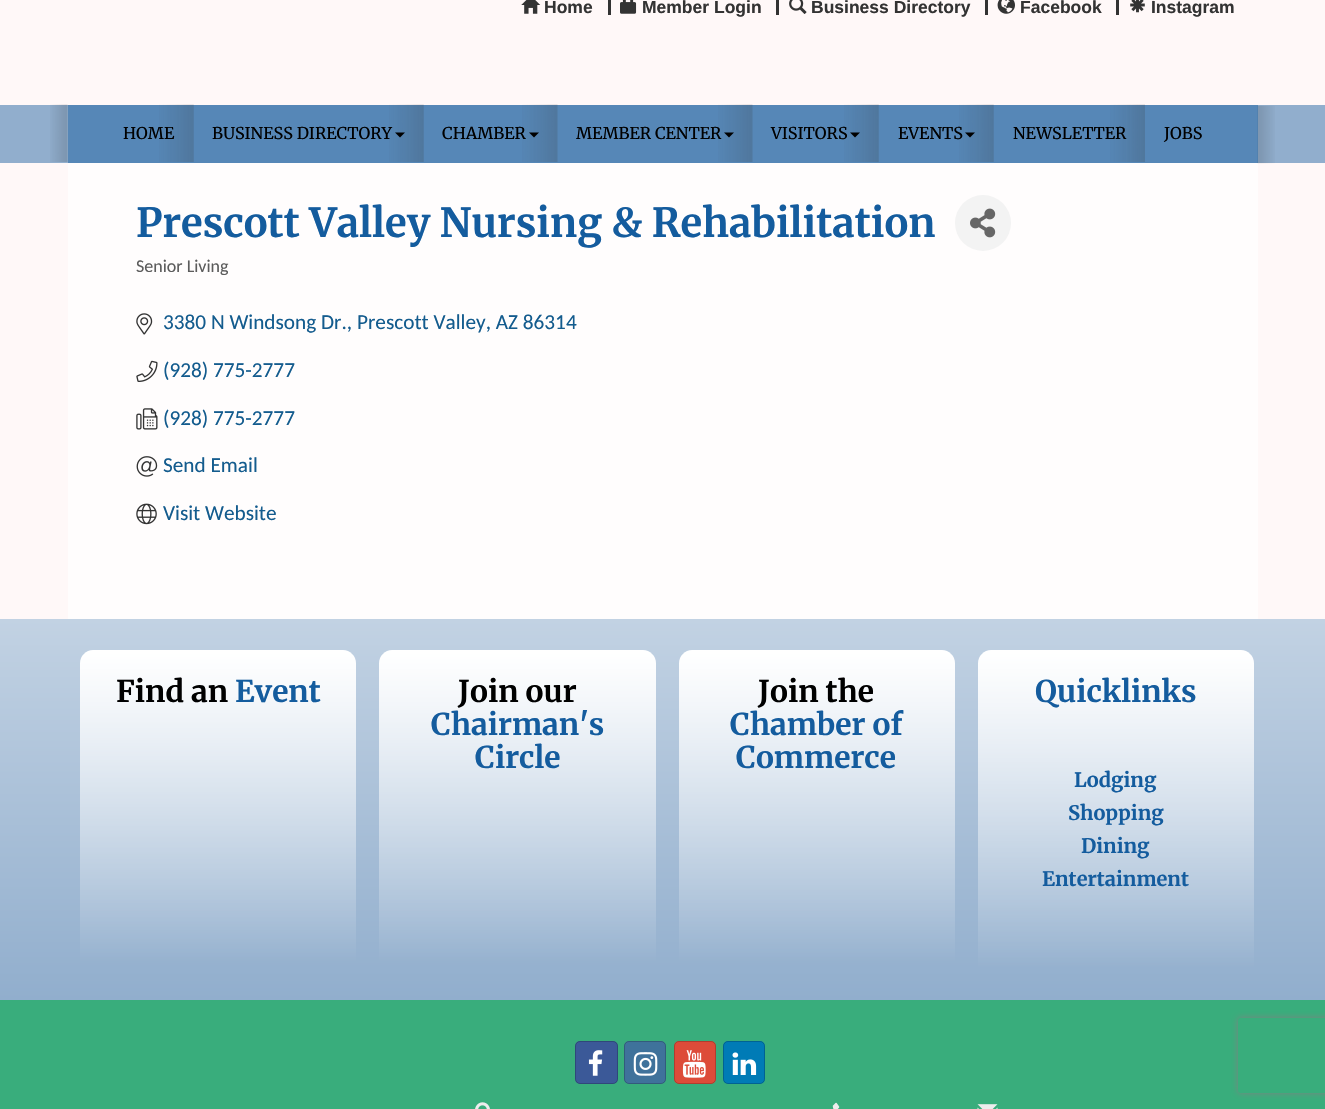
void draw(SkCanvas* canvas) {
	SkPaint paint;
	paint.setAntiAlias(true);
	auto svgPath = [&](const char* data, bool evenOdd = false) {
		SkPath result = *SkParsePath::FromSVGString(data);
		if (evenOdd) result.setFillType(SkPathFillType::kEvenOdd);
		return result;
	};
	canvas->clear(0xfffff8f8);
	canvas->drawImageRect(SkImages::DeferredFromEncodedData(SkData::MakeFromFileName("img1.png")), SkRect::MakeXYWH(521, 0, 20, 14), SkSamplingOptions());
	SkFont f1(fontMgr->matchFamilyStyle("Liberation Sans", SkFontStyle::Bold()), 17.5);
	f1.setSubpixel(true);
	paint.setColor(0xff333333);
	canvas->drawString("Home", 544, 13, f1, paint);
	canvas->drawRect(SkRect::MakeXYWH(608, 0, 3, 15), paint);
	canvas->drawImageRect(SkImages::DeferredFromEncodedData(SkData::MakeFromFileName("img2.png")), SkRect::MakeXYWH(620, 0, 17, 14), SkSamplingOptions());
	canvas->drawString("Member Login", 642, 13, f1, paint);
	canvas->drawRect(SkRect::MakeXYWH(776, 0, 3, 15), paint);
	canvas->drawImageRect(SkImages::DeferredFromEncodedData(SkData::MakeFromFileName("img3.png")), SkRect::MakeXYWH(789, 0, 18, 14), SkSamplingOptions());
	canvas->drawString("Business Directory", 811, 13, f1, paint);
	canvas->drawRect(SkRect::MakeXYWH(985, 0, 3, 15), paint);
	canvas->drawImageRect(SkImages::DeferredFromEncodedData(SkData::MakeFromFileName("img4.png")), SkRect::MakeXYWH(997, 0, 18, 14), SkSamplingOptions());
	canvas->drawString("Facebook", 1020, 13, f1, paint);
	canvas->drawRect(SkRect::MakeXYWH(1116, 0, 3, 15), paint);
	canvas->drawImageRect(SkImages::DeferredFromEncodedData(SkData::MakeFromFileName("img5.png")), SkRect::MakeXYWH(1130, 0, 15, 13), SkSamplingOptions());
	canvas->drawString("Instagram", 1151, 13, f1, paint);
	paint.setColor(0xff91aecd);
	canvas->drawRect(SkRect::MakeXYWH(0, 105, 1325, 58), paint);
	canvas->drawImageRect(SkImages::DeferredFromEncodedData(SkData::MakeFromFileName("img6.png")), SkRect::MakeXYWH(50, 104, 18, 58), SkSamplingOptions());
	paint.setColor(0xfffffdfd);
	canvas->drawRect(SkRect::MakeXYWH(68, 163, 1190, 456), paint);
	canvas->drawImageRect(SkImages::DeferredFromEncodedData(SkData::MakeFromFileName("img14.png")), SkRect::MakeXYWH(1257, 105, 18, 59), SkSamplingOptions());
	paint.setColor(0x78145b9d);
	canvas->drawRect(SkRect::MakeXYWH(68, 105, 1190, 58), paint);
	canvas->drawImageRect(SkImages::DeferredFromEncodedData(SkData::MakeFromFileName("img7.png")), SkRect::MakeXYWH(159, 104, 35, 58), SkSamplingOptions());
	SkFont f2(fontMgr->matchFamilyStyle("Merriweather", SkFontStyle::Normal()), 16.25);
	f2.setSubpixel(true);
	paint.setColor(0xff000000);
	canvas->drawString("HOME", 123, 139, f2, paint);
	canvas->drawImageRect(SkImages::DeferredFromEncodedData(SkData::MakeFromFileName("img8.png")), SkRect::MakeXYWH(389, 104, 35, 58), SkSamplingOptions());
	canvas->drawString("BUSINESS DIRECTORY", 212, 139, f2, paint);
	canvas->drawPath(svgPath("M395 132.5H405L400 137.5Z"), paint);
	canvas->drawImageRect(SkImages::DeferredFromEncodedData(SkData::MakeFromFileName("img9.png")), SkRect::MakeXYWH(522, 104, 36, 58), SkSamplingOptions());
	canvas->drawString("CHAMBER", 442, 139, f2, paint);
	canvas->drawPath(svgPath("M529 132.5H539L534 137.5Z"), paint);
	canvas->drawImageRect(SkImages::DeferredFromEncodedData(SkData::MakeFromFileName("img10.png")), SkRect::MakeXYWH(718, 104, 35, 58), SkSamplingOptions());
	canvas->drawString("MEMBER CENTER", 576, 139, f2, paint);
	canvas->drawPath(svgPath("M724 132.5H734L729 137.5Z"), paint);
	canvas->drawImageRect(SkImages::DeferredFromEncodedData(SkData::MakeFromFileName("img11.png")), SkRect::MakeXYWH(844, 104, 35, 58), SkSamplingOptions());
	canvas->drawString("VISITORS", 771, 139, f2, paint);
	canvas->drawPath(svgPath("M850 132.5H860L855 137.5Z"), paint);
	canvas->drawImageRect(SkImages::DeferredFromEncodedData(SkData::MakeFromFileName("img12.png")), SkRect::MakeXYWH(959, 104, 35, 58), SkSamplingOptions());
	canvas->drawString("EVENTS", 898, 139, f2, paint);
	canvas->drawPath(svgPath("M965 132.5H975L970 137.5Z"), paint);
	canvas->drawImageRect(SkImages::DeferredFromEncodedData(SkData::MakeFromFileName("img13.png")), SkRect::MakeXYWH(1110, 104, 35, 58), SkSamplingOptions());
	canvas->drawString("NEWSLETTER", 1013, 139, f2, paint);
	canvas->drawString("JOBS", 1164, 139, f2, paint);
	SkFont f3(fontMgr->matchFamilyStyle("Merriweather", SkFontStyle::Bold()), 40);
	f3.setSubpixel(true);
	paint.setColor(0xff145c9e);
	canvas->drawString("Prescott Valley Nursing & Rehabilitation", 136, 237, f3, paint);
	paint.setColor(0xfff3f3f3);
	canvas->drawCircle(983, 223, 28, paint);
	canvas->drawImageRect(SkImages::DeferredFromEncodedData(SkData::MakeFromFileName("img15.png")), SkRect::MakeXYWH(970, 208, 26, 30), SkSamplingOptions());
	SkFont f4(fontMgr->matchFamilyStyle("Carlito", SkFontStyle::Normal()), 18);
	f4.setSubpixel(true);
	paint.setColor(0xff5c5c5c);
	canvas->drawString("Senior Living", 136, 272, f4, paint);
	canvas->drawImageRect(SkImages::DeferredFromEncodedData(SkData::MakeFromFileName("img16.png")), SkRect::MakeXYWH(136, 313, 17, 22), SkSamplingOptions());
	SkFont f5(fontMgr->matchFamilyStyle("Carlito", SkFontStyle::Normal()), 21.25);
	f5.setSubpixel(true);
	paint.setColor(0xff145c8e);
	canvas->drawString("3380 N Windsong Dr., Prescott Valley, AZ 86314", 163, 329, f5, paint);
	canvas->drawImageRect(SkImages::DeferredFromEncodedData(SkData::MakeFromFileName("img17.png")), SkRect::MakeXYWH(136, 360, 22, 22), SkSamplingOptions());
	canvas->drawString("(928) 775-2777", 163, 377, f5, paint);
	canvas->drawImageRect(SkImages::DeferredFromEncodedData(SkData::MakeFromFileName("img18.png")), SkRect::MakeXYWH(136, 408, 22, 22), SkSamplingOptions());
	canvas->drawString("(928) 775-2777", 163, 425, f5, paint);
	canvas->drawImageRect(SkImages::DeferredFromEncodedData(SkData::MakeFromFileName("img19.png")), SkRect::MakeXYWH(136, 456, 22, 21), SkSamplingOptions());
	canvas->drawString("Send Email", 163, 472, f5, paint);
	canvas->drawImageRect(SkImages::DeferredFromEncodedData(SkData::MakeFromFileName("img20.png")), SkRect::MakeXYWH(136, 503, 21, 22), SkSamplingOptions());
	canvas->drawString("Visit Website", 163, 520, f5, paint);
	{
		const SkColor colors[] = {0xffc2d2e3, 0xff91aecd};
		const float stops[] = {0, 1};
		const SkPoint ends[] = {{663, 619}, {663, 1000}};
		paint.setShader(SkGradientShader::MakeLinear(ends, colors, stops, 2, SkTileMode::kClamp));
		paint.setAlpha(255);
	}
	canvas->drawRect(SkRect::MakeXYWH(0, 619, 1325, 381), paint);
	{
		const SkColor colors[] = {0xffffffff, 0x00ffffff};
		const float stops[] = {0, 1};
		const SkPoint ends[] = {{218, 650}, {218, 963}};
		paint.setShader(SkGradientShader::MakeLinear(ends, colors, stops, 2, SkTileMode::kClamp));
		paint.setAlpha(255);
	}
	canvas->drawPath(svgPath("M93 650H343C350 650 356 656 356 663V963H80V663C80 656 86 650 93 650Z"), paint);
	SkFont f6(fontMgr->matchFamilyStyle("Merriweather", SkFontStyle::Bold()), 30);
	f6.setSubpixel(true);
	paint.setShader(nullptr);
	paint.setColor(0xff000000);
	canvas->drawString("Find an", 116, 702, f6, paint);
	paint.setColor(0xff145c9e);
	canvas->drawString("Event", 235, 702, f6, paint);
	{
		const SkColor colors[] = {0xffffffff, 0x00ffffff};
		const float stops[] = {0, 1};
		const SkPoint ends[] = {{518, 650}, {518, 963}};
		paint.setShader(SkGradientShader::MakeLinear(ends, colors, stops, 2, SkTileMode::kClamp));
		paint.setAlpha(255);
	}
	canvas->drawPath(svgPath("M392 650H643C650 650 656 656 656 663V963H379V663C379 656 385 650 392 650Z"), paint);
	paint.setShader(nullptr);
	paint.setColor(0xff000000);
	canvas->drawString("Join our", 458, 702, f6, paint);
	paint.setColor(0xff145c9e);
	canvas->drawString("Chairman's", 431, 735, f6, paint);
	canvas->drawString("Circle", 475, 768, f6, paint);
	{
		const SkColor colors[] = {0xffffffff, 0x00ffffff};
		const float stops[] = {0, 1};
		const SkPoint ends[] = {{817, 650}, {817, 963}};
		paint.setShader(SkGradientShader::MakeLinear(ends, colors, stops, 2, SkTileMode::kClamp));
		paint.setAlpha(255);
	}
	canvas->drawPath(svgPath("M692 650H942C949 650 955 656 955 663V963H679V663C679 656 685 650 692 650Z"), paint);
	paint.setShader(nullptr);
	paint.setColor(0xff000000);
	canvas->drawString("Join the", 758, 702, f6, paint);
	paint.setColor(0xff145c9e);
	canvas->drawString("Chamber of", 730, 735, f6, paint);
	canvas->drawString("Commerce", 736, 768, f6, paint);
	{
		const SkColor colors[] = {0xffffffff, 0x00ffffff};
		const float stops[] = {0, 1};
		const SkPoint ends[] = {{1116, 650}, {1116, 969}};
		paint.setShader(SkGradientShader::MakeLinear(ends, colors, stops, 2, SkTileMode::kClamp));
		paint.setAlpha(255);
	}
	canvas->drawPath(svgPath("M991 650H1241C1248 650 1254 656 1254 663V969H978V663C978 656 984 650 991 650Z"), paint);
	paint.setShader(nullptr);
	paint.setColor(0xff145c9e);
	canvas->drawString("Quicklinks", 1035, 702, f6, paint);
	SkFont f7(fontMgr->matchFamilyStyle("Merriweather", SkFontStyle::Bold()), 20);
	f7.setSubpixel(true);
	canvas->drawString("Lodging", 1074, 787, f7, paint);
	canvas->drawString("Shopping", 1068, 820, f7, paint);
	canvas->drawString("Dining", 1081, 853, f7, paint);
	canvas->drawString("Entertainment", 1042, 886, f7, paint);
	paint.setColor(0xff39ad7c);
	canvas->drawRect(SkRect::MakeXYWH(0, 1000, 1325, 109), paint);
	paint.setColor(0xff3b5998);
	canvas->drawRoundRect(SkRect::MakeXYWH(575, 1041, 43, 43), 5, 5, paint);
	paint.setStroke(true);
	paint.setStrokeWidth(1);
	paint.setColor(0x33000000);
	canvas->drawRoundRect(SkRect::MakeXYWH(575.5, 1041.5, 42, 42), 4.5, 4.5, paint);
	canvas->drawImageRect(SkImages::DeferredFromEncodedData(SkData::MakeFromFileName("img21.png")), SkRect::MakeXYWH(588, 1050, 15, 26), SkSamplingOptions());
	paint.setStroke(false);
	paint.setColor(0xff3f729b);
	canvas->drawRoundRect(SkRect::MakeXYWH(624, 1041, 42, 43), 5, 5, paint);
	paint.setStroke(true);
	paint.setColor(0x33000000);
	canvas->drawRoundRect(SkRect::MakeXYWH(624.5, 1041.5, 41, 42), 4.5, 4.5, paint);
	canvas->drawImageRect(SkImages::DeferredFromEncodedData(SkData::MakeFromFileName("img22.png")), SkRect::MakeXYWH(633, 1052, 25, 24), SkSamplingOptions());
	paint.setStroke(false);
	paint.setColor(0xffdd4b39);
	canvas->drawRoundRect(SkRect::MakeXYWH(674, 1041, 42, 43), 5, 5, paint);
	paint.setStroke(true);
	paint.setColor(0x33000000);
	canvas->drawRoundRect(SkRect::MakeXYWH(674.5, 1041.5, 41, 42), 4.5, 4.5, paint);
	canvas->drawImageRect(SkImages::DeferredFromEncodedData(SkData::MakeFromFileName("img23.png")), SkRect::MakeXYWH(682, 1050, 24, 28), SkSamplingOptions());
	paint.setStroke(false);
	paint.setColor(0xff007bb6);
	canvas->drawRoundRect(SkRect::MakeXYWH(723, 1041, 42, 43), 5, 5, paint);
	paint.setStroke(true);
	paint.setColor(0x33000000);
	canvas->drawRoundRect(SkRect::MakeXYWH(723.5, 1041.5, 41, 42), 4.5, 4.5, paint);
	canvas->drawImageRect(SkImages::DeferredFromEncodedData(SkData::MakeFromFileName("img24.png")), SkRect::MakeXYWH(732, 1052, 25, 23), SkSamplingOptions());
	canvas->drawImageRect(SkImages::DeferredFromEncodedData(SkData::MakeFromFileName("img25.png")), SkRect::MakeXYWH(475, 1102, 15, 7), SkSamplingOptions());
	canvas->drawImageRect(SkImages::DeferredFromEncodedData(SkData::MakeFromFileName("img26.png")), SkRect::MakeXYWH(832, 1102, 8, 7), SkSamplingOptions());
	canvas->drawImageRect(SkImages::DeferredFromEncodedData(SkData::MakeFromFileName("img27.png")), SkRect::MakeXYWH(977, 1104, 21, 5), SkSamplingOptions());
	canvas->save();
	canvas->clipPath(svgPath("M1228 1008H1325V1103H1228ZM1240.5 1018H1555.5C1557 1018 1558 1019 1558 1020.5V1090.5C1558 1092 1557 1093 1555.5 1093H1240.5C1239 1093 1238 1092 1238 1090.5V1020.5C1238 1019 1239 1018 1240.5 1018Z", true), true);
	paint.setStroke(false);
	paint.setColor(0xff808080);
	paint.setMaskFilter(SkMaskFilter::MakeBlur(kNormal_SkBlurStyle, 3));
	canvas->drawRoundRect(SkRect::MakeXYWH(1238, 1018, 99, 75), 2.5, 2.5, paint);
	paint.setMaskFilter(nullptr);
	canvas->restore();
}
